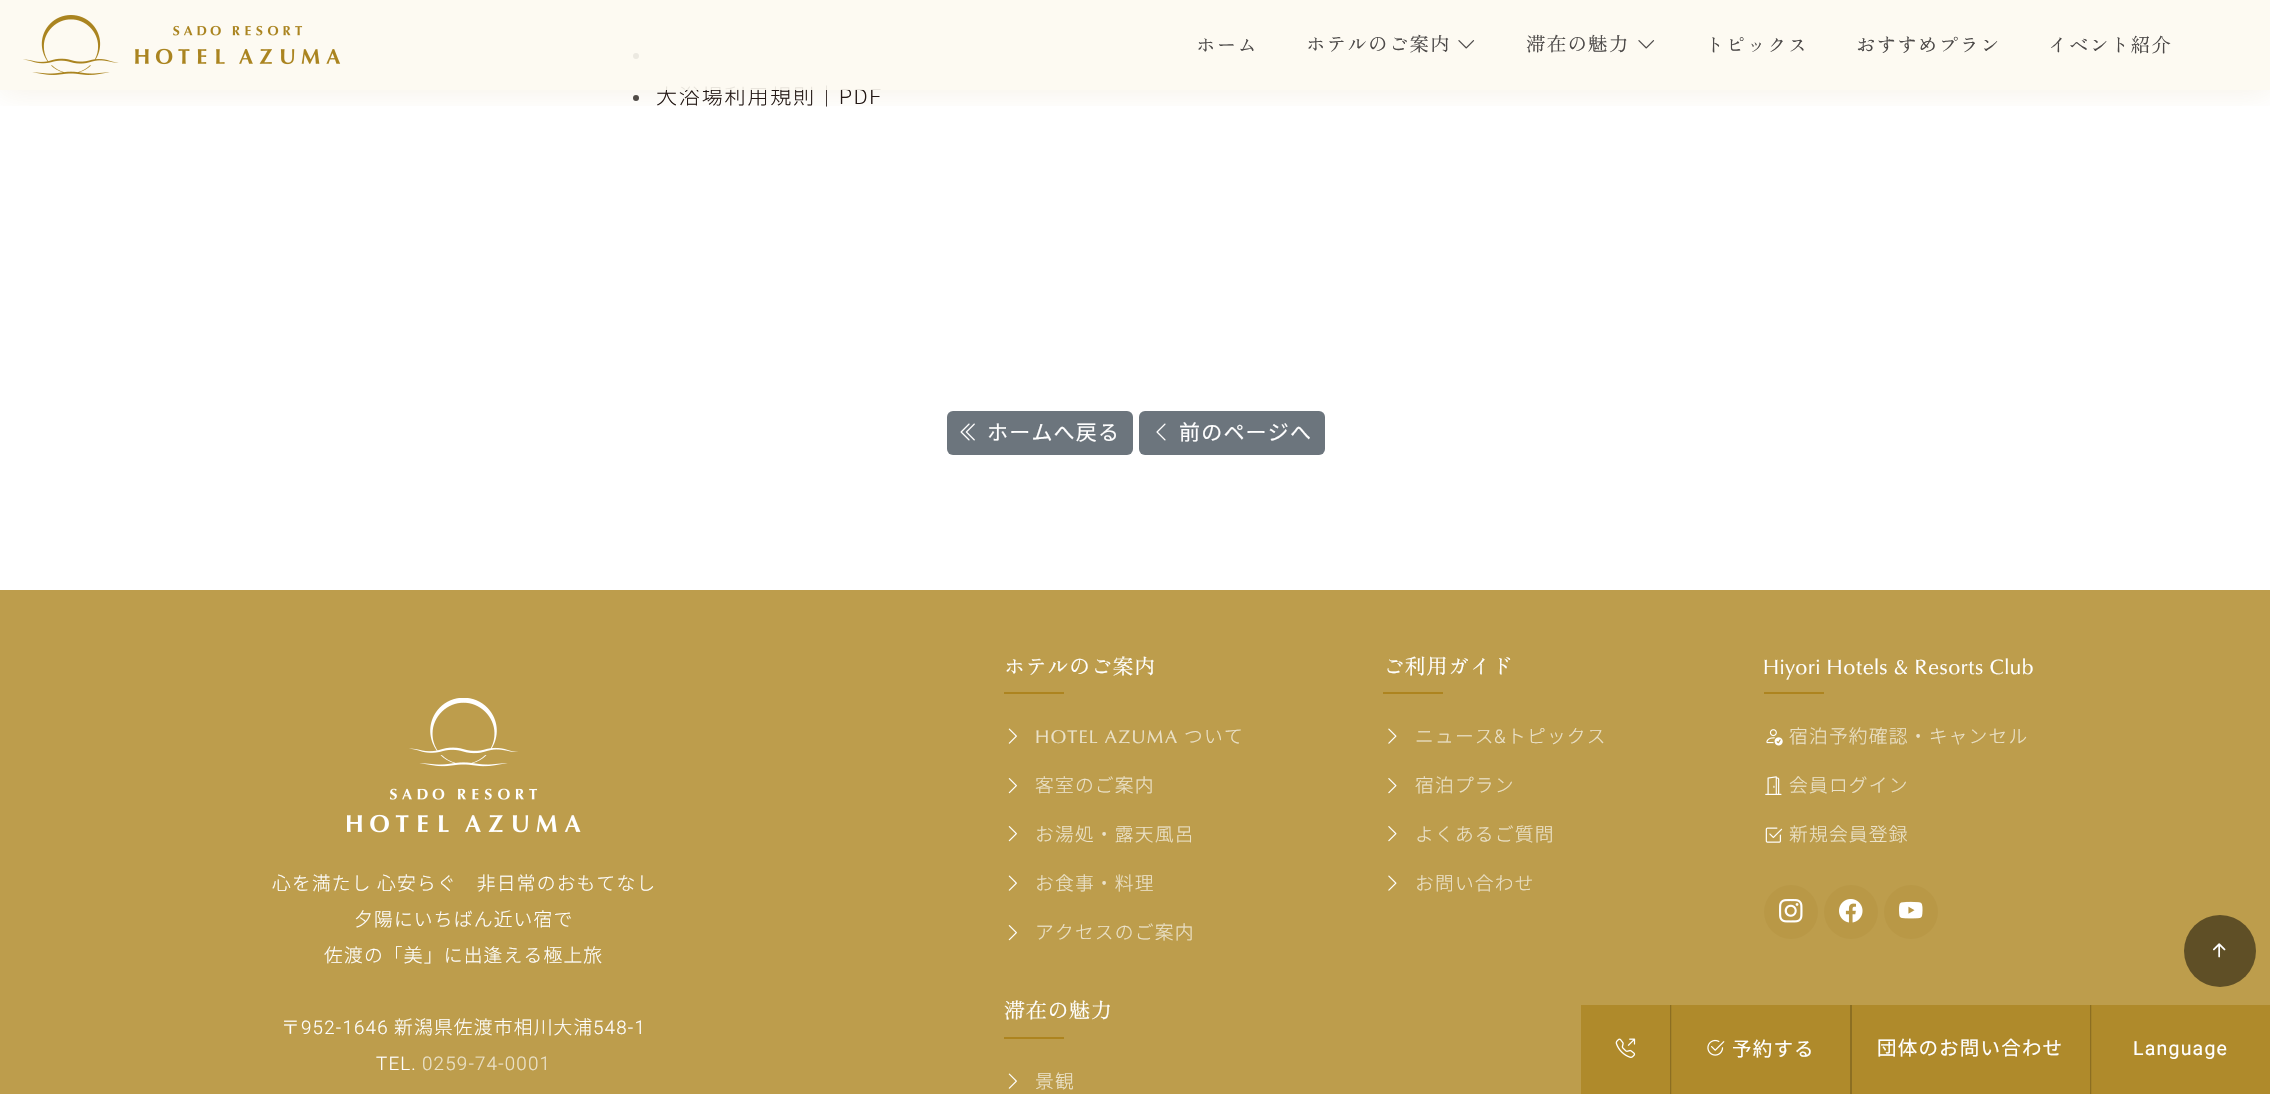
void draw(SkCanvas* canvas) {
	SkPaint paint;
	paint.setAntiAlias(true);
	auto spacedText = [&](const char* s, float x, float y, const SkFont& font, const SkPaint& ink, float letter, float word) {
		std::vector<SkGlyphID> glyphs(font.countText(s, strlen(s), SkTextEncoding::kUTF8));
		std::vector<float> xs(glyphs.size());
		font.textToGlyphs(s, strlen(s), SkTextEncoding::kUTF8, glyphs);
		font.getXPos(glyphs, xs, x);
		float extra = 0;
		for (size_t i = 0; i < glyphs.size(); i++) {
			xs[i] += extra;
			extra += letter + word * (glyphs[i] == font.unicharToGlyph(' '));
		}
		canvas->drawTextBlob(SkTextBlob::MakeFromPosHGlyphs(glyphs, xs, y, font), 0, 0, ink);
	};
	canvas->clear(0xffffffff);
	paint.setColor(0xff4c4948);
	canvas->drawCircle(636, 56, 3, paint);
	canvas->drawCircle(636, 98, 3, paint);
	canvas->save();
	canvas->clipRect(SkRect::MakeXYWH(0, 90, 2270, 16));
	paint.setColor(0x1aaa8420);
	paint.setMaskFilter(SkMaskFilter::MakeBlur(kNormal_SkBlurStyle, 15));
	canvas->drawRect(SkRect::MakeXYWH(0, 3, 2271, 90), paint);
	paint.setMaskFilter(nullptr);
	canvas->restore();
	SkFont f1(fontMgr->matchFamilyStyle("Noto Sans JP", SkFontStyle(300, SkFontStyle::kNormal_Width, SkFontStyle::kUpright_Slant)), 21.1);
	f1.setSubpixel(true);
	paint.setColor(0xff231815);
	spacedText("大浴場利用規則｜", 656, 104, f1, paint, 1.75, 0);
	SkFont f2(fontMgr->matchFamilyStyle("Roboto", SkFontStyle(300, SkFontStyle::kNormal_Width, SkFontStyle::kUpright_Slant)), 21.1);
	f2.setSubpixel(true);
	spacedText("PDF", 839, 104, f2, paint, 1.75, 0);
	paint.setColor(0xe6fdfaf1);
	canvas->drawRect(SkRect::MakeXYWH(0, 0, 2270, 90), paint);
	canvas->drawImageRect(SkImages::DeferredFromEncodedData(SkData::MakeFromFileName("img1.png")), SkRect::MakeXYWH(23, 15, 318, 60), SkSamplingOptions());
	SkFont f3(fontMgr->matchFamilyStyle("Zen Old Mincho", SkFontStyle::Normal()), 19.5);
	f3.setSubpixel(true);
	paint.setColor(0xff4c4948);
	spacedText("ホーム", 1196, 52, f3, paint, 1.2, 0);
	spacedText("ホテルのご案内", 1306, 51, f3, paint, 1.2, 0);
	canvas->drawImageRect(SkImages::DeferredFromEncodedData(SkData::MakeFromFileName("img2.png")), SkRect::MakeXYWH(1458, 40, 17, 9), SkSamplingOptions());
	spacedText("滞在の魅力", 1526, 51, f3, paint, 1.2, 0);
	canvas->drawImageRect(SkImages::DeferredFromEncodedData(SkData::MakeFromFileName("img2.png")), SkRect::MakeXYWH(1638, 40, 17, 9), SkSamplingOptions());
	spacedText("トピックス", 1705, 52, f3, paint, 1.2, 0);
	spacedText("おすすめプラン", 1856, 52, f3, paint, 1.2, 0);
	spacedText("イベント紹介", 2048, 52, f3, paint, 1.2, 0);
	paint.setColor(0xff6c757d);
	canvas->drawRoundRect(SkRect::MakeXYWH(947, 411, 186, 44), 6, 6, paint);
	canvas->drawImageRect(SkImages::DeferredFromEncodedData(SkData::MakeFromFileName("img3.png")), SkRect::MakeXYWH(960, 423, 15, 18), SkSamplingOptions());
	SkFont f4(fontMgr->matchFamilyStyle("Noto Sans JP", SkFontStyle::Normal()), 21);
	f4.setSubpixel(true);
	paint.setColor(0xffffffff);
	spacedText("ホームへ戻る", 987, 440, f4, paint, 1.2, 0);
	paint.setColor(0xff6c757d);
	canvas->drawRoundRect(SkRect::MakeXYWH(1139, 411, 186, 44), 6, 6, paint);
	canvas->drawImageRect(SkImages::DeferredFromEncodedData(SkData::MakeFromFileName("img4.png")), SkRect::MakeXYWH(1156, 423, 10, 18), SkSamplingOptions());
	paint.setColor(0xffffffff);
	spacedText("前のページへ", 1179, 440, f4, paint, 1.2, 0);
	paint.setColor(0xffbd9d4c);
	canvas->drawRect(SkRect::MakeXYWH(0, 590, 2270, 504), paint);
	paint.setColor(0xffaf8a2b);
	canvas->drawRect(SkRect::MakeXYWH(2092, 1005, 178, 89), paint);
	canvas->drawRect(SkRect::MakeXYWH(1672, 1005, 178, 89), paint);
	paint.setColor(0xffa58327);
	canvas->drawRect(SkRect::MakeXYWH(1671, 1005, 1, 89), paint);
	canvas->drawRect(SkRect::MakeXYWH(2091, 1005, 1, 89), paint);
	canvas->drawImageRect(SkImages::DeferredFromEncodedData(SkData::MakeFromFileName("img5.png")), SkRect::MakeXYWH(347, 698, 234, 135), SkSamplingOptions());
	SkFont f5(fontMgr->matchFamilyStyle("Noto Sans JP", SkFontStyle(300, SkFontStyle::kNormal_Width, SkFontStyle::kUpright_Slant)), 18.75);
	f5.setSubpixel(true);
	paint.setColor(0xffffffff);
	spacedText("心を満たし 心安らぐ　非日常のおもてなし", 272, 890, f5, paint, 1.2, 0);
	spacedText("夕陽にいちばん近い宿で", 354, 926, f5, paint, 1.2, 0);
	spacedText("佐渡の「美」に出逢える極上旅", 324, 962, f5, paint, 1.2, 0);
	spacedText("〒", 281, 1034, f5, paint, 1.2, 0);
	SkFont f6(fontMgr->matchFamilyStyle("Roboto", SkFontStyle(300, SkFontStyle::kNormal_Width, SkFontStyle::kUpright_Slant)), 18.75);
	f6.setSubpixel(true);
	spacedText("952-1646", 301, 1034, f6, paint, 1.2, 0);
	spacedText("新潟県佐渡市相川大浦", 394, 1034, f5, paint, 1.2, 0);
	spacedText("548-1", 593, 1034, f6, paint, 1.2, 0);
	spacedText("TEL.", 376, 1070, f6, paint, 1.2, 0);
	paint.setColor(0xffebe2c9);
	spacedText("0259-74-0001", 422, 1070, f6, paint, 1.2, 0);
	SkFont f7(fontMgr->matchFamilyStyle("Zen Old Mincho", SkFontStyle::Normal()), 21.1);
	f7.setSubpixel(true);
	paint.setColor(0xffffffff);
	spacedText("ホテルのご案内", 1004, 674, f7, paint, 0.6, 0);
	paint.setColor(0xffad841f);
	canvas->drawRect(SkRect::MakeXYWH(1004, 692, 60, 2), paint);
	canvas->drawImageRect(SkImages::DeferredFromEncodedData(SkData::MakeFromFileName("img6.png")), SkRect::MakeXYWH(1008, 728, 9, 16), SkSamplingOptions());
	SkFont f8(fontMgr->matchFamilyStyle("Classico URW", SkFontStyle::Normal()), 18.75);
	f8.setSubpixel(true);
	paint.setColor(0xffebe2c9);
	spacedText("HOTEL AZUMA", 1035, 743, f8, paint, 1.2, 0);
	spacedText("ついて", 1184, 743, f5, paint, 1.2, 0);
	canvas->drawImageRect(SkImages::DeferredFromEncodedData(SkData::MakeFromFileName("img7.png")), SkRect::MakeXYWH(1008, 778, 9, 16), SkSamplingOptions());
	spacedText("客室のご案内", 1035, 792, f5, paint, 1.2, 0);
	canvas->drawImageRect(SkImages::DeferredFromEncodedData(SkData::MakeFromFileName("img7.png")), SkRect::MakeXYWH(1008, 826, 9, 16), SkSamplingOptions());
	spacedText("お湯処・露天風呂", 1035, 841, f5, paint, 1.2, 0);
	canvas->drawImageRect(SkImages::DeferredFromEncodedData(SkData::MakeFromFileName("img6.png")), SkRect::MakeXYWH(1008, 875, 9, 16), SkSamplingOptions());
	spacedText("お食事・料理", 1035, 890, f5, paint, 1.2, 0);
	canvas->drawImageRect(SkImages::DeferredFromEncodedData(SkData::MakeFromFileName("img7.png")), SkRect::MakeXYWH(1008, 925, 9, 16), SkSamplingOptions());
	spacedText("アクセスのご案内", 1035, 939, f5, paint, 1.2, 0);
	paint.setColor(0xffffffff);
	spacedText("滞在の魅力", 1004, 1018, f7, paint, 0.6, 0);
	paint.setColor(0xffad841f);
	canvas->drawRect(SkRect::MakeXYWH(1004, 1037, 60, 2), paint);
	canvas->drawImageRect(SkImages::DeferredFromEncodedData(SkData::MakeFromFileName("img6.png")), SkRect::MakeXYWH(1008, 1073, 9, 16), SkSamplingOptions());
	paint.setColor(0xffebe2c9);
	spacedText("景観", 1035, 1088, f5, paint, 1.2, 0);
	paint.setColor(0xffffffff);
	spacedText("ご利用ガイド", 1383, 674, f7, paint, 0.6, 0);
	paint.setColor(0xffad841f);
	canvas->drawRect(SkRect::MakeXYWH(1383, 692, 60, 2), paint);
	canvas->drawImageRect(SkImages::DeferredFromEncodedData(SkData::MakeFromFileName("img8.png")), SkRect::MakeXYWH(1388, 728, 9, 16), SkSamplingOptions());
	paint.setColor(0xffebe2c9);
	spacedText("ニュース", 1415, 743, f5, paint, 1.2, 0);
	spacedText("&", 1494, 743, f6, paint, 1.2, 0);
	spacedText("トピックス", 1507, 743, f5, paint, 1.2, 0);
	canvas->drawImageRect(SkImages::DeferredFromEncodedData(SkData::MakeFromFileName("img9.png")), SkRect::MakeXYWH(1388, 778, 9, 16), SkSamplingOptions());
	spacedText("宿泊プラン", 1415, 792, f5, paint, 1.2, 0);
	canvas->drawImageRect(SkImages::DeferredFromEncodedData(SkData::MakeFromFileName("img9.png")), SkRect::MakeXYWH(1388, 826, 9, 16), SkSamplingOptions());
	spacedText("よくあるご質問", 1415, 841, f5, paint, 1.2, 0);
	canvas->drawImageRect(SkImages::DeferredFromEncodedData(SkData::MakeFromFileName("img8.png")), SkRect::MakeXYWH(1388, 875, 9, 16), SkSamplingOptions());
	spacedText("お問い合わせ", 1415, 890, f5, paint, 1.2, 0);
	SkFont f9(fontMgr->matchFamilyStyle("Classico URW", SkFontStyle::Normal()), 21.1);
	f9.setSubpixel(true);
	paint.setColor(0xffffffff);
	spacedText("Hiyori Hotels & Resorts Club", 1763, 674, f9, paint, 0.6, 0);
	paint.setColor(0xffad841f);
	canvas->drawRect(SkRect::MakeXYWH(1764, 692, 60, 2), paint);
	canvas->drawImageRect(SkImages::DeferredFromEncodedData(SkData::MakeFromFileName("img10.png")), SkRect::MakeXYWH(1766, 729, 17, 17), SkSamplingOptions());
	paint.setColor(0xffebe2c9);
	spacedText("宿泊予約確認・キャンセル", 1789, 743, f5, paint, 1.2, 0);
	canvas->drawImageRect(SkImages::DeferredFromEncodedData(SkData::MakeFromFileName("img11.png")), SkRect::MakeXYWH(1765, 776, 17, 19), SkSamplingOptions());
	spacedText("会員ログイン", 1789, 792, f5, paint, 1.2, 0);
	canvas->drawImageRect(SkImages::DeferredFromEncodedData(SkData::MakeFromFileName("img12.png")), SkRect::MakeXYWH(1765, 827, 18, 16), SkSamplingOptions());
	spacedText("新規会員登録", 1789, 841, f5, paint, 1.2, 0);
	paint.setColor(0xffb99846);
	canvas->drawCircle(1791, 912, 27, paint);
	canvas->drawImageRect(SkImages::DeferredFromEncodedData(SkData::MakeFromFileName("img13.png")), SkRect::MakeXYWH(1779, 899, 24, 24), SkSamplingOptions());
	canvas->drawCircle(1851, 912, 27, paint);
	canvas->drawImageRect(SkImages::DeferredFromEncodedData(SkData::MakeFromFileName("img14.png")), SkRect::MakeXYWH(1839, 899, 24, 24), SkSamplingOptions());
	canvas->drawCircle(1911, 912, 27, paint);
	canvas->drawImageRect(SkImages::DeferredFromEncodedData(SkData::MakeFromFileName("img15.png")), SkRect::MakeXYWH(1899, 901, 24, 18), SkSamplingOptions());
	paint.setColor(0xff5f4f26);
	canvas->drawCircle(2220, 951, 36, paint);
	canvas->drawImageRect(SkImages::DeferredFromEncodedData(SkData::MakeFromFileName("img16.png")), SkRect::MakeXYWH(2213, 943, 13, 15), SkSamplingOptions());
	paint.setColor(0xffaf8a2b);
	canvas->drawRect(SkRect::MakeXYWH(1581, 1005, 89, 89), paint);
	paint.setColor(0xff8c6e22);
	canvas->drawRect(SkRect::MakeXYWH(1670, 1005, 1, 89), paint);
	canvas->drawImageRect(SkImages::DeferredFromEncodedData(SkData::MakeFromFileName("img17.png")), SkRect::MakeXYWH(1615, 1038, 21, 20), SkSamplingOptions());
	paint.setColor(0xff8c6f22);
	canvas->drawRect(SkRect::MakeXYWH(1850, 1005, 2, 89), paint);
	canvas->drawImageRect(SkImages::DeferredFromEncodedData(SkData::MakeFromFileName("img18.png")), SkRect::MakeXYWH(1707, 1039, 18, 17), SkSamplingOptions());
	SkFont f10(fontMgr->matchFamilyStyle("Noto Sans JP", SkFontStyle::Normal()), 19.5);
	f10.setSubpixel(true);
	paint.setColor(0xffffffff);
	spacedText("予約する", 1732, 1056, f10, paint, 1.2, 0);
	paint.setColor(0xffaf8a2b);
	canvas->drawRect(SkRect::MakeXYWH(1852, 1005, 238, 89), paint);
	paint.setColor(0xff8c6e22);
	canvas->drawRect(SkRect::MakeXYWH(2090, 1005, 1, 89), paint);
	paint.setColor(0xffffffff);
	spacedText("団体のお問い合わせ", 1877, 1055, f10, paint, 1.2, 0);
	SkFont f11(fontMgr->matchFamilyStyle("Roboto", SkFontStyle::Normal()), 19.5);
	f11.setSubpixel(true);
	spacedText("Language", 2133, 1055, f11, paint, 1.2, 0);
}
